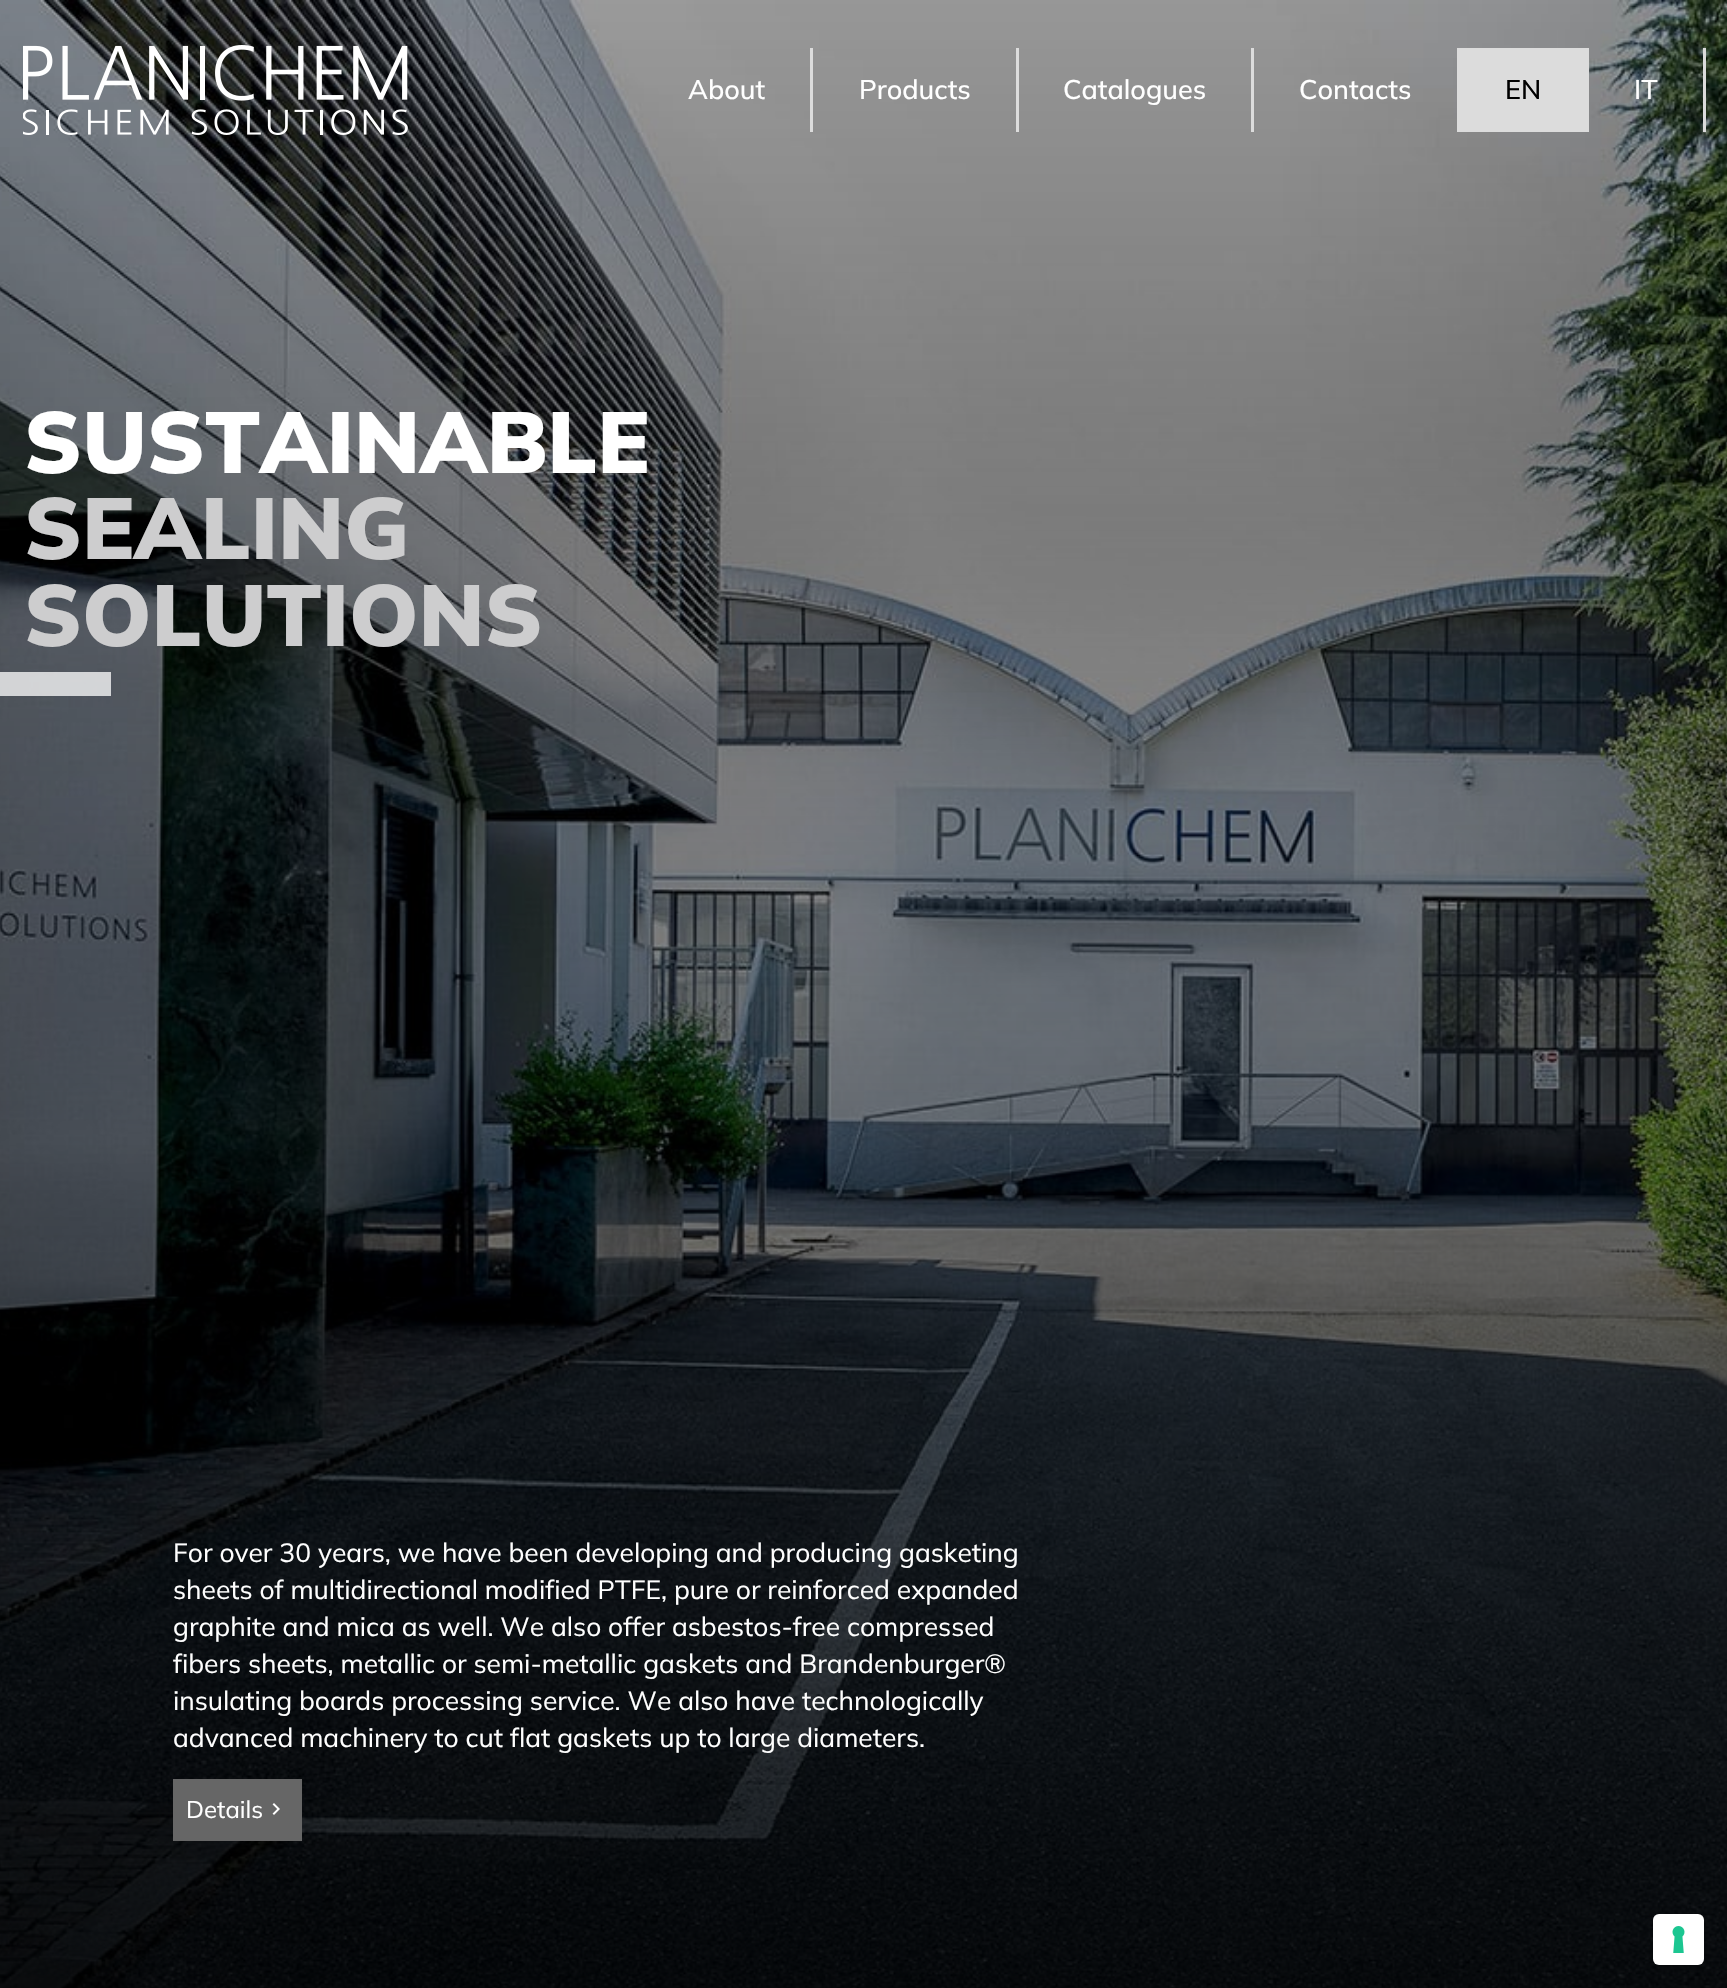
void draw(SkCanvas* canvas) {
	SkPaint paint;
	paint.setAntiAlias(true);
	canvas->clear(0xffffffff);
	canvas->drawImageRect(SkImages::DeferredFromEncodedData(SkData::MakeFromFileName("img2.png")), SkRect::MakeXYWH(0, 0, 1727, 1988), SkSamplingOptions());
	canvas->drawImageRect(SkImages::DeferredFromEncodedData(SkData::MakeFromFileName("img1.png")), SkRect::MakeXYWH(23, 45, 385, 90), SkSamplingOptions());
	paint.setColor(0xffdcdcdc);
	canvas->drawRect(SkRect::MakeXYWH(810, 48, 3, 84), paint);
	SkFont f1(fontMgr->matchFamilyStyle("Mulish", SkFontStyle(500, SkFontStyle::kNormal_Width, SkFontStyle::kUpright_Slant)), 27);
	f1.setSubpixel(true);
	paint.setColor(0xffffffff);
	canvas->drawString("About", 688, 99, f1, paint);
	paint.setColor(0xffdcdcdc);
	canvas->drawRect(SkRect::MakeXYWH(1016, 48, 3, 84), paint);
	paint.setColor(0xffffffff);
	canvas->drawString("Products", 859, 99, f1, paint);
	paint.setColor(0xffdcdcdc);
	canvas->drawRect(SkRect::MakeXYWH(1251, 48, 3, 84), paint);
	paint.setColor(0xffffffff);
	canvas->drawString("Catalogues", 1063, 99, f1, paint);
	canvas->drawString("Contacts", 1299, 99, f1, paint);
	paint.setColor(0xffdcdcdc);
	canvas->drawRect(SkRect::MakeXYWH(1457, 48, 132, 84), paint);
	paint.setColor(0xff000000);
	canvas->drawString("EN", 1505, 99, f1, paint);
	paint.setColor(0xffdcdcdc);
	canvas->drawRect(SkRect::MakeXYWH(1703, 48, 3, 84), paint);
	paint.setColor(0xffffffff);
	canvas->drawString("IT", 1634, 99, f1, paint);
	SkFont f2(fontMgr->matchFamilyStyle("Mulish", SkFontStyle(900, SkFontStyle::kNormal_Width, SkFontStyle::kUpright_Slant)), 86.5);
	f2.setSubpixel(true);
	canvas->drawString("SUSTAINABLE", 24, 473, f2, paint);
	paint.setColor(0xffcdcdce);
	canvas->drawString("SEALING", 24, 559, f2, paint);
	canvas->drawString("SOLUTIONS", 24, 646, f2, paint);
	paint.setColor(0xbfffffff);
	canvas->drawRect(SkRect::MakeXYWH(0, 672, 111, 24), paint);
	SkFont f3(fontMgr->matchFamilyStyle("Mulish", SkFontStyle::Normal()), 26.4);
	f3.setSubpixel(true);
	paint.setColor(0xffffffff);
	canvas->drawString("For over 30 years, we have been developing and producing gasketing", 173, 1562, f3, paint);
	canvas->drawString("sheets of multidirectional modified PTFE, pure or reinforced expanded", 173, 1599, f3, paint);
	canvas->drawString("graphite and mica as well. We also offer asbestos-free compressed", 173, 1636, f3, paint);
	canvas->drawString("fibers sheets, metallic or semi-metallic gaskets and Brandenburger®", 173, 1673, f3, paint);
	canvas->drawString("insulating boards processing service. We also have technologically", 173, 1710, f3, paint);
	canvas->drawString("advanced machinery to cut flat gaskets up to large diameters.", 173, 1747, f3, paint);
	paint.setColor(0xff666666);
	canvas->drawRect(SkRect::MakeXYWH(173, 1779, 129, 62), paint);
	SkFont f4(fontMgr->matchFamilyStyle("Mulish", SkFontStyle::Normal()), 24);
	f4.setSubpixel(true);
	paint.setColor(0xffffffff);
	canvas->drawString("Details", 186, 1818, f4, paint);
	canvas->drawImageRect(SkImages::DeferredFromEncodedData(SkData::MakeFromFileName("img3.png")), SkRect::MakeXYWH(272, 1803, 8, 12), SkSamplingOptions());
	paint.setStroke(true);
	paint.setStrokeWidth(2);
	paint.setColor(0x26000000);
	canvas->drawRoundRect(SkRect::MakeXYWH(1653, 1914, 52, 52), 7, 7, paint);
	paint.setStroke(false);
	paint.setColor(0xffffffff);
	canvas->drawRoundRect(SkRect::MakeXYWH(1653, 1914, 51, 51), 6, 6, paint);
	canvas->drawImageRect(SkImages::DeferredFromEncodedData(SkData::MakeFromFileName("img4.png")), SkRect::MakeXYWH(1672, 1926, 13, 27), SkSamplingOptions());
}
